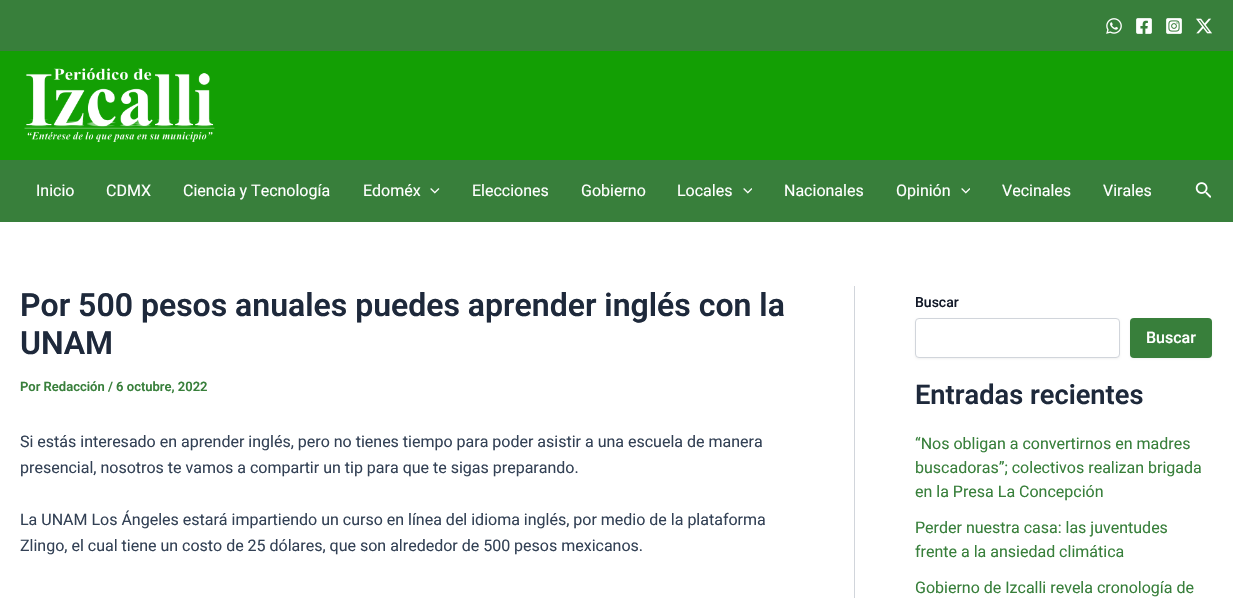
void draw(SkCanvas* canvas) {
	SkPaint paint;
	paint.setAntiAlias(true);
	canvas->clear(0xffffffff);
	paint.setColor(0xff387f3b);
	canvas->drawRect(SkRect::MakeXYWH(0, 0, 1233, 51), paint);
	canvas->drawImageRect(SkImages::DeferredFromEncodedData(SkData::MakeFromFileName("img1.png")), SkRect::MakeXYWH(1106, 18, 16, 16), SkSamplingOptions());
	canvas->drawImageRect(SkImages::DeferredFromEncodedData(SkData::MakeFromFileName("img2.png")), SkRect::MakeXYWH(1136, 18, 16, 16), SkSamplingOptions());
	canvas->drawImageRect(SkImages::DeferredFromEncodedData(SkData::MakeFromFileName("img3.png")), SkRect::MakeXYWH(1166, 18, 16, 16), SkSamplingOptions());
	canvas->drawImageRect(SkImages::DeferredFromEncodedData(SkData::MakeFromFileName("img4.png")), SkRect::MakeXYWH(1196, 18, 16, 16), SkSamplingOptions());
	paint.setColor(0xff139f04);
	canvas->drawRect(SkRect::MakeXYWH(0, 51, 1233, 109), paint);
	canvas->drawImageRect(SkImages::DeferredFromEncodedData(SkData::MakeFromFileName("img5.png")), SkRect::MakeXYWH(24, 68, 191, 74), SkSamplingOptions());
	paint.setColor(0xff387f3b);
	canvas->drawRect(SkRect::MakeXYWH(0, 160, 1233, 62), paint);
	SkFont f1(fontMgr->matchFamilyStyle("Roboto", SkFontStyle::Normal()), 16);
	f1.setSubpixel(true);
	paint.setColor(0xffffffff);
	canvas->drawString("Inicio", 36, 196, f1, paint);
	canvas->drawString("CDMX", 106, 196, f1, paint);
	canvas->drawString("Ciencia y Tecnología", 183, 196, f1, paint);
	canvas->drawString("Edoméx", 363, 196, f1, paint);
	canvas->drawImageRect(SkImages::DeferredFromEncodedData(SkData::MakeFromFileName("img6.png")), SkRect::MakeXYWH(430, 188, 10, 6), SkSamplingOptions());
	canvas->drawString("Elecciones", 472, 196, f1, paint);
	canvas->drawString("Gobierno", 581, 196, f1, paint);
	canvas->drawString("Locales", 677, 196, f1, paint);
	canvas->drawImageRect(SkImages::DeferredFromEncodedData(SkData::MakeFromFileName("img7.png")), SkRect::MakeXYWH(743, 188, 9, 6), SkSamplingOptions());
	canvas->drawString("Nacionales", 784, 196, f1, paint);
	canvas->drawString("Opinión", 896, 196, f1, paint);
	canvas->drawImageRect(SkImages::DeferredFromEncodedData(SkData::MakeFromFileName("img7.png")), SkRect::MakeXYWH(961, 188, 9, 6), SkSamplingOptions());
	canvas->drawString("Vecinales", 1002, 196, f1, paint);
	canvas->drawString("Virales", 1103, 196, f1, paint);
	canvas->drawImageRect(SkImages::DeferredFromEncodedData(SkData::MakeFromFileName("img8.png")), SkRect::MakeXYWH(1195, 182, 16, 16), SkSamplingOptions());
	paint.setColor(0xffd1d5db);
	canvas->drawRect(SkRect::MakeXYWH(854, 286, 1, 312), paint);
	SkFont f2(fontMgr->matchFamilyStyle("Roboto", SkFontStyle(600, SkFontStyle::kNormal_Width, SkFontStyle::kUpright_Slant)), 32);
	f2.setSubpixel(true);
	paint.setColor(0xff1e293b);
	canvas->drawString("Por 500 pesos anuales puedes aprender inglés con la", 20, 316, f2, paint);
	canvas->drawString("UNAM", 20, 354, f2, paint);
	SkFont f3(fontMgr->matchFamilyStyle("Roboto", SkFontStyle(600, SkFontStyle::kNormal_Width, SkFontStyle::kUpright_Slant)), 13);
	f3.setSubpixel(true);
	paint.setColor(0xff387f3b);
	canvas->drawString("Por Redacción / 6 octubre, 2022", 20, 391, f3, paint);
	paint.setColor(0xff334155);
	canvas->drawString("Si estás interesado en aprender inglés, pero no tienes tiempo para poder asistir a una escuela de manera", 20, 447, f1, paint);
	canvas->drawString("presencial, nosotros te vamos a compartir un tip para que te sigas preparando.", 20, 473, f1, paint);
	canvas->drawString("La UNAM Los Ángeles estará impartiendo un curso en línea del idioma inglés, por medio de la plataforma", 20, 525, f1, paint);
	canvas->drawString("Zlingo, el cual tiene un costo de 25 dólares, que son alrededor de 500 pesos mexicanos.", 20, 551, f1, paint);
	SkFont f4(fontMgr->matchFamilyStyle("Roboto", SkFontStyle(500, SkFontStyle::kNormal_Width, SkFontStyle::kUpright_Slant)), 14);
	f4.setSubpixel(true);
	paint.setColor(0xff111827);
	canvas->drawString("Buscar", 915, 307, f4, paint);
	paint.setColor(0x0d000000);
	paint.setMaskFilter(SkMaskFilter::MakeBlur(kNormal_SkBlurStyle, 1));
	canvas->drawRoundRect(SkRect::MakeXYWH(915, 319, 205, 40), 4, 4, paint);
	paint.setMaskFilter(nullptr);
	paint.setColor(0xffffffff);
	canvas->drawRoundRect(SkRect::MakeXYWH(915.5, 318.5, 204, 39), 3.5, 3.5, paint);
	paint.setStroke(true);
	paint.setStrokeWidth(1);
	paint.setColor(0xffd1d5db);
	canvas->drawRoundRect(SkRect::MakeXYWH(915.5, 318.5, 204, 39), 3.5, 3.5, paint);
	paint.setStroke(false);
	paint.setColor(0x0d000000);
	paint.setMaskFilter(SkMaskFilter::MakeBlur(kNormal_SkBlurStyle, 1));
	canvas->drawRoundRect(SkRect::MakeXYWH(1130, 319, 82, 40), 4, 4, paint);
	paint.setMaskFilter(nullptr);
	paint.setColor(0xff387f3b);
	canvas->drawRoundRect(SkRect::MakeXYWH(1130, 318, 82, 40), 4, 4, paint);
	SkFont f5(fontMgr->matchFamilyStyle("Roboto", SkFontStyle(500, SkFontStyle::kNormal_Width, SkFontStyle::kUpright_Slant)), 16);
	f5.setSubpixel(true);
	paint.setColor(0xffffffff);
	canvas->drawString("Buscar", 1146, 343, f5, paint);
	SkFont f6(fontMgr->matchFamilyStyle("Roboto", SkFontStyle(600, SkFontStyle::kNormal_Width, SkFontStyle::kUpright_Slant)), 27.25);
	f6.setSubpixel(true);
	paint.setColor(0xff1e293b);
	canvas->drawString("Entradas recientes", 915, 404, f6, paint);
	paint.setColor(0xff387f3b);
	canvas->drawString("“Nos obligan a convertirnos en madres", 915, 449, f1, paint);
	canvas->drawString("buscadoras”; colectivos realizan brigada", 915, 473, f1, paint);
	canvas->drawString("en la Presa La Concepción", 915, 497, f1, paint);
	canvas->drawString("Perder nuestra casa: las juventudes", 915, 533, f1, paint);
	canvas->drawString("frente a la ansiedad climática", 915, 557, f1, paint);
	canvas->drawString("Gobierno de Izcalli revela cronología de", 915, 593, f1, paint);
}
